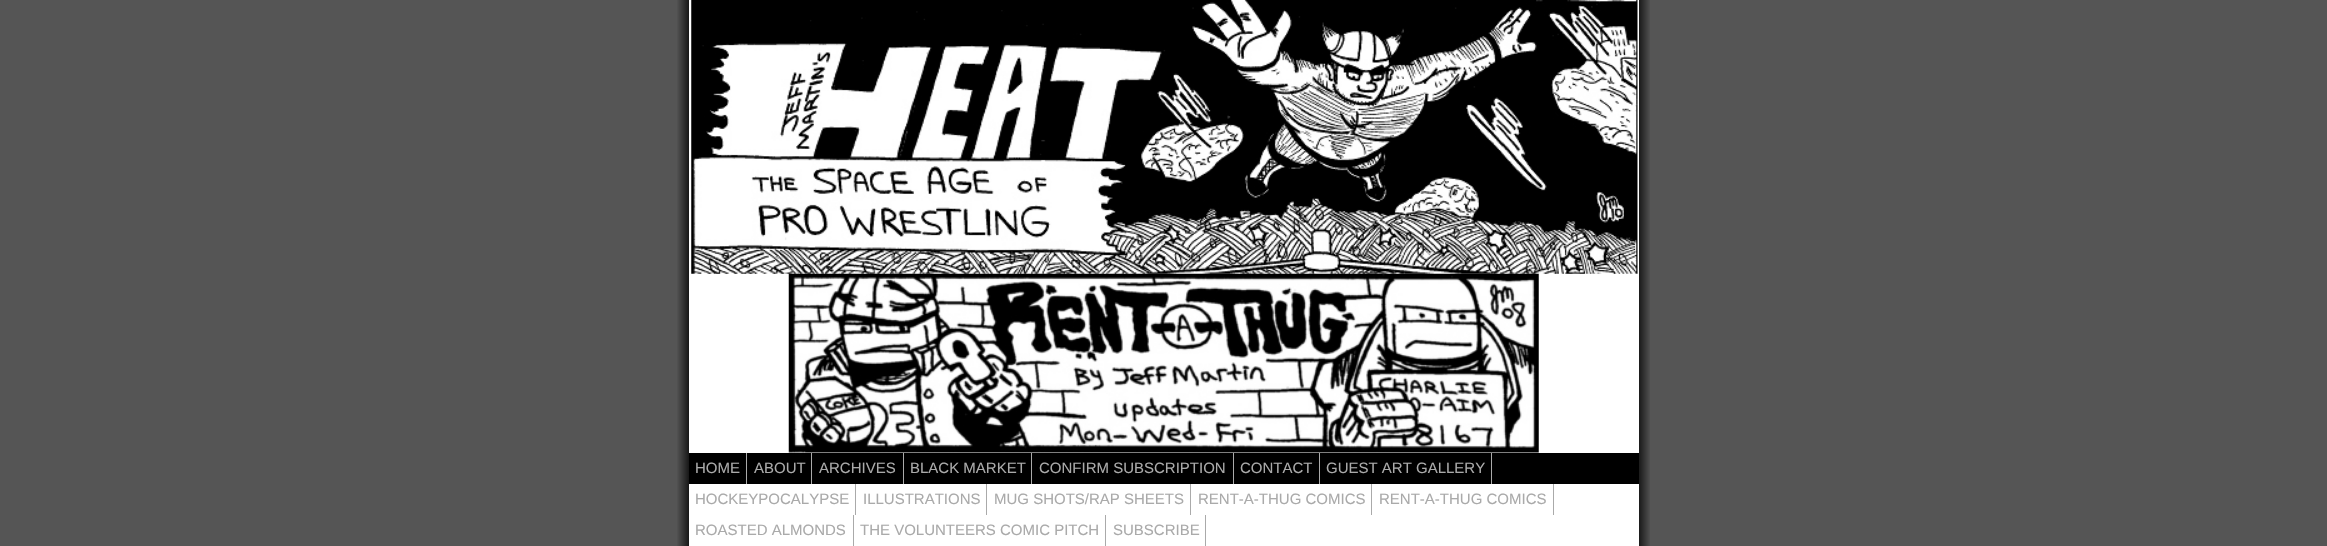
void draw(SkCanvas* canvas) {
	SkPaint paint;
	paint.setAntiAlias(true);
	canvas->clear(0xff555555);
	canvas->drawImageRect(SkImages::DeferredFromEncodedData(SkData::MakeFromFileName("img1.png")), SkRect::MakeXYWH(677, 0, 973, 546), SkSamplingOptions());
	paint.setColor(0xffffffff);
	canvas->drawRect(SkRect::MakeXYWH(689, 0, 950, 453), paint);
	canvas->drawImageRect(SkImages::DeferredFromEncodedData(SkData::MakeFromFileName("img2.png")), SkRect::MakeXYWH(691, 0, 947, 274), SkSamplingOptions());
	canvas->drawImageRect(SkImages::DeferredFromEncodedData(SkData::MakeFromFileName("img3.png")), SkRect::MakeXYWH(788, 273, 751, 180), SkSamplingOptions());
	paint.setColor(0xff000000);
	canvas->drawRect(SkRect::MakeXYWH(689, 453, 950, 31), paint);
	paint.setColor(0xffaaaaaa);
	canvas->drawRect(SkRect::MakeXYWH(746, 453, 1, 31), paint);
	SkFont f1(fontMgr->matchFamilyStyle("Liberation Sans", SkFontStyle::Normal()), 15);
	f1.setSubpixel(true);
	canvas->drawString("HOME", 695, 473, f1, paint);
	canvas->drawRect(SkRect::MakeXYWH(811, 453, 1, 31), paint);
	canvas->drawString("ABOUT", 754, 473, f1, paint);
	canvas->drawRect(SkRect::MakeXYWH(903, 453, 1, 31), paint);
	canvas->drawString("ARCHIVES", 819, 473, f1, paint);
	canvas->drawRect(SkRect::MakeXYWH(1031, 453, 1, 31), paint);
	canvas->drawString("BLACK MARKET", 910, 473, f1, paint);
	canvas->drawRect(SkRect::MakeXYWH(1233, 453, 1, 31), paint);
	canvas->drawString("CONFIRM SUBSCRIPTION", 1039, 473, f1, paint);
	canvas->drawRect(SkRect::MakeXYWH(1319, 453, 1, 31), paint);
	canvas->drawString("CONTACT", 1240, 473, f1, paint);
	canvas->drawRect(SkRect::MakeXYWH(1491, 453, 1, 31), paint);
	canvas->drawString("GUEST ART GALLERY", 1326, 473, f1, paint);
	paint.setColor(0xffffffff);
	canvas->drawRect(SkRect::MakeXYWH(689, 484, 950, 62), paint);
	paint.setColor(0xffaaaaaa);
	canvas->drawRect(SkRect::MakeXYWH(855, 484, 1, 31), paint);
	canvas->drawString("HOCKEYPOCALYPSE", 695, 504, f1, paint);
	canvas->drawRect(SkRect::MakeXYWH(986, 484, 1, 31), paint);
	canvas->drawString("ILLUSTRATIONS", 863, 504, f1, paint);
	canvas->drawRect(SkRect::MakeXYWH(1190, 484, 1, 31), paint);
	canvas->drawString("MUG SHOTS/RAP SHEETS", 994, 504, f1, paint);
	canvas->drawRect(SkRect::MakeXYWH(1371, 484, 1, 31), paint);
	canvas->drawString("RENT-A-THUG COMICS", 1198, 504, f1, paint);
	canvas->drawRect(SkRect::MakeXYWH(1553, 484, 1, 31), paint);
	canvas->drawString("RENT-A-THUG COMICS", 1379, 504, f1, paint);
	canvas->drawRect(SkRect::MakeXYWH(853, 515, 1, 31), paint);
	canvas->drawString("ROASTED ALMONDS", 695, 535, f1, paint);
	canvas->drawRect(SkRect::MakeXYWH(1105, 515, 1, 31), paint);
	canvas->drawString("THE VOLUNTEERS COMIC PITCH", 860, 535, f1, paint);
	canvas->drawRect(SkRect::MakeXYWH(1205, 515, 1, 31), paint);
	canvas->drawString("SUBSCRIBE", 1113, 535, f1, paint);
}
